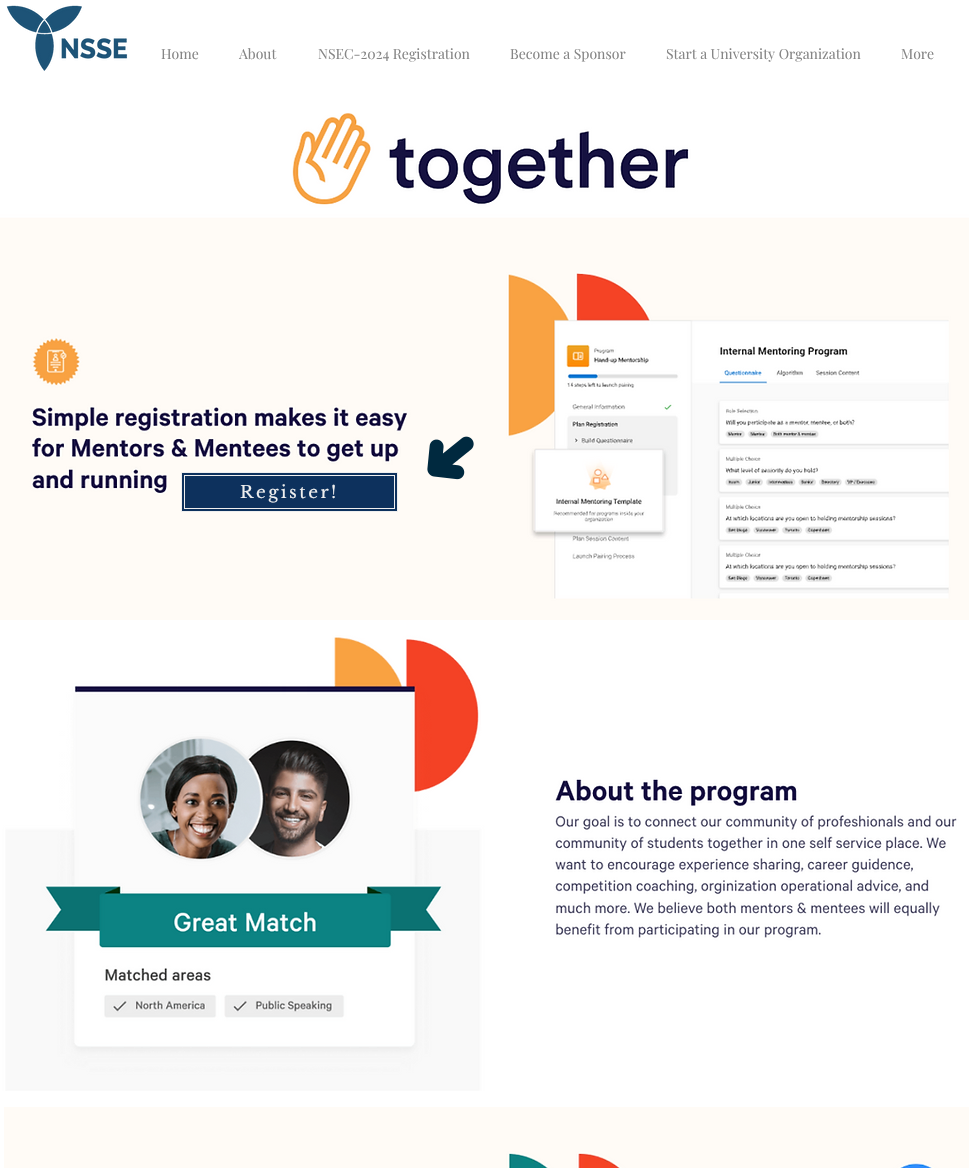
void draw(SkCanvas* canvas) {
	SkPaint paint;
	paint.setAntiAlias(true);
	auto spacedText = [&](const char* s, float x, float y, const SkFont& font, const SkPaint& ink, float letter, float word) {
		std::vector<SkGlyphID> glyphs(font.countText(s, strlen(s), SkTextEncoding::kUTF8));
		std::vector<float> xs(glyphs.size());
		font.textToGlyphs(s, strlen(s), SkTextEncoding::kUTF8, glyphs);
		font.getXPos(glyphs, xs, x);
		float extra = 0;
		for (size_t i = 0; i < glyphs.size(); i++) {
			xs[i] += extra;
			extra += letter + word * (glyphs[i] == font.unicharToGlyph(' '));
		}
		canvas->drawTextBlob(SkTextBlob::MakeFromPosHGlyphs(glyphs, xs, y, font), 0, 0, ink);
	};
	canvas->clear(0xffffffff);
	canvas->drawImageRect(SkImages::DeferredFromEncodedData(SkData::MakeFromFileName("img1.png")), SkRect::MakeXYWH(6, 5, 122, 66), SkSamplingOptions());
	SkFont f1(fontMgr->matchFamilyStyle("Playfair Display", SkFontStyle::Normal()), 14);
	f1.setSubpixel(true);
	paint.setColor(0xff858585);
	canvas->drawString("Home", 161, 59, f1, paint);
	canvas->drawString("About", 239, 59, f1, paint);
	canvas->drawString("NSEC-2024 Registration", 318, 59, f1, paint);
	canvas->drawString("Become a Sponsor", 510, 59, f1, paint);
	canvas->drawString("Start a University Organization", 666, 59, f1, paint);
	canvas->drawString("More", 901, 59, f1, paint);
	canvas->drawImageRect(SkImages::DeferredFromEncodedData(SkData::MakeFromFileName("img2.png")), SkRect::MakeXYWH(0, 113, 969, 507), SkSamplingOptions());
	canvas->drawImageRect(SkImages::DeferredFromEncodedData(SkData::MakeFromFileName("img3.png")), SkRect::MakeXYWH(427, 436, 47, 44), SkSamplingOptions());
	paint.setColor(0xff0d315d);
	canvas->drawRect(SkRect::MakeXYWH(181.5, 472.5, 216, 39), paint);
	paint.setStroke(true);
	paint.setStrokeWidth(1);
	paint.setColor(0xffefefef);
	canvas->drawRect(SkRect::MakeXYWH(181.5, 472.5, 216, 39), paint);
	canvas->drawRect(SkRect::MakeXYWH(184.5, 475.5, 210, 33), paint);
	SkFont f2(fontMgr->matchFamilyStyle("Libre Baskerville", SkFontStyle::Normal()), 17);
	f2.setSubpixel(true);
	paint.setStroke(false);
	spacedText("Register!", 240, 498, f2, paint, 2.5, 0);
	canvas->drawImageRect(SkImages::DeferredFromEncodedData(SkData::MakeFromFileName("img4.png")), SkRect::MakeXYWH(0, 620, 969, 471), SkSamplingOptions());
	canvas->drawImageRect(SkImages::DeferredFromEncodedData(SkData::MakeFromFileName("img5.png")), SkRect::MakeXYWH(4, 1107, 965, 61), SkSamplingOptions());
}
